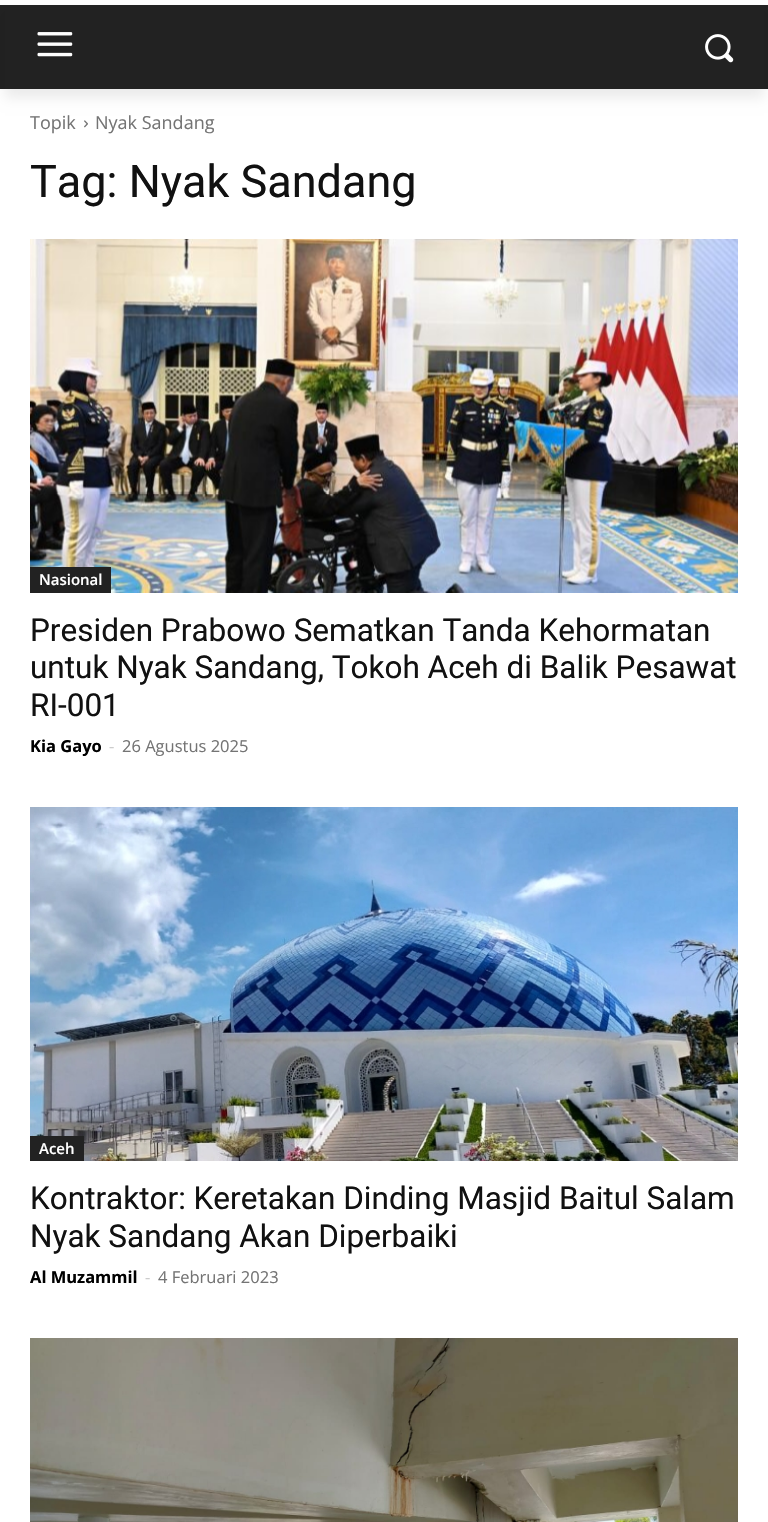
void draw(SkCanvas* canvas) {
	SkPaint paint;
	paint.setAntiAlias(true);
	auto svgPath = [&](const char* data, bool evenOdd = false) {
		SkPath result = *SkParsePath::FromSVGString(data);
		if (evenOdd) result.setFillType(SkPathFillType::kEvenOdd);
		return result;
	};
	canvas->clear(0xffffffff);
	paint.setColor(0xff222222);
	canvas->drawRect(SkRect::MakeXYWH(0, 5, 768, 84), paint);
	canvas->drawImageRect(SkImages::DeferredFromEncodedData(SkData::MakeFromFileName("img1.png")), SkRect::MakeXYWH(37, 32, 36, 25), SkSamplingOptions());
	canvas->drawImageRect(SkImages::DeferredFromEncodedData(SkData::MakeFromFileName("img2.png")), SkRect::MakeXYWH(705, 34, 29, 29), SkSamplingOptions());
	canvas->save();
	canvas->clipPath(svgPath("M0 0H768V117H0ZM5 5H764V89H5Z", true), true);
	paint.setColor(0x14000000);
	paint.setMaskFilter(SkMaskFilter::MakeBlur(kNormal_SkBlurStyle, 6));
	canvas->drawRect(SkRect::MakeXYWH(5, 14, 759, 84), paint);
	paint.setMaskFilter(nullptr);
	canvas->restore();
	SkFont f1(fontMgr->matchFamilyStyle("Open Sans", SkFontStyle::Normal()), 18);
	f1.setSubpixel(true);
	paint.setColor(0xff747474);
	canvas->drawString("Topik", 30, 129, f1, paint);
	canvas->drawImageRect(SkImages::DeferredFromEncodedData(SkData::MakeFromFileName("img3.png")), SkRect::MakeXYWH(84, 120, 4, 8), SkSamplingOptions());
	canvas->drawString("Nyak Sandang", 95, 129, f1, paint);
	SkFont f2(fontMgr->matchFamilyStyle("Roboto", SkFontStyle::Normal()), 45);
	f2.setSubpixel(true);
	paint.setColor(0xff111111);
	canvas->drawString("Tag: Nyak Sandang", 30, 197, f2, paint);
	canvas->drawImageRect(SkImages::DeferredFromEncodedData(SkData::MakeFromFileName("img4.png")), SkRect::MakeXYWH(30, 239, 708, 354), SkSamplingOptions());
	paint.setColor(0xff222222);
	canvas->drawRect(SkRect::MakeXYWH(30, 567, 81, 26), paint);
	SkFont f3(fontMgr->matchFamilyStyle("Open Sans", SkFontStyle(600, SkFontStyle::kNormal_Width, SkFontStyle::kUpright_Slant)), 15);
	f3.setSubpixel(true);
	paint.setColor(0xffffffff);
	canvas->drawString("Nasional", 39, 585, f3, paint);
	SkFont f4(fontMgr->matchFamilyStyle("Roboto", SkFontStyle::Normal()), 31.5);
	f4.setSubpixel(true);
	paint.setColor(0xff111111);
	canvas->drawString("Presiden Prabowo Sematkan Tanda Kehormatan", 30, 641, f4, paint);
	canvas->drawString("untuk Nyak Sandang, Tokoh Aceh di Balik Pesawat", 30, 678, f4, paint);
	canvas->drawString("RI-001", 30, 716, f4, paint);
	SkFont f5(fontMgr->matchFamilyStyle("Open Sans", SkFontStyle::Bold()), 16.5);
	f5.setSubpixel(true);
	paint.setColor(0xff000000);
	canvas->drawString("Kia Gayo", 30, 752, f5, paint);
	SkFont f6(fontMgr->matchFamilyStyle("Open Sans", SkFontStyle::Normal()), 16.5);
	f6.setSubpixel(true);
	paint.setColor(0xffcccccc);
	canvas->drawString("-", 109, 752, f6, paint);
	paint.setColor(0xff747474);
	canvas->drawString("26 Agustus 2025", 122, 752, f6, paint);
	canvas->drawImageRect(SkImages::DeferredFromEncodedData(SkData::MakeFromFileName("img5.png")), SkRect::MakeXYWH(30, 807, 708, 354), SkSamplingOptions());
	paint.setColor(0xff222222);
	canvas->drawRect(SkRect::MakeXYWH(30, 1136, 54, 25), paint);
	paint.setColor(0xffffffff);
	canvas->drawString("Aceh", 39, 1154, f3, paint);
	paint.setColor(0xff111111);
	canvas->drawString("Kontraktor: Keretakan Dinding Masjid Baitul Salam", 30, 1209, f4, paint);
	canvas->drawString("Nyak Sandang Akan Diperbaiki", 30, 1247, f4, paint);
	paint.setColor(0xff000000);
	canvas->drawString("Al Muzammil", 30, 1283, f5, paint);
	paint.setColor(0xffcccccc);
	canvas->drawString("-", 145, 1283, f6, paint);
	paint.setColor(0xff747474);
	canvas->drawString("4 Februari 2023", 158, 1283, f6, paint);
	canvas->drawImageRect(SkImages::DeferredFromEncodedData(SkData::MakeFromFileName("img6.png")), SkRect::MakeXYWH(30, 1338, 708, 184), SkSamplingOptions());
}
